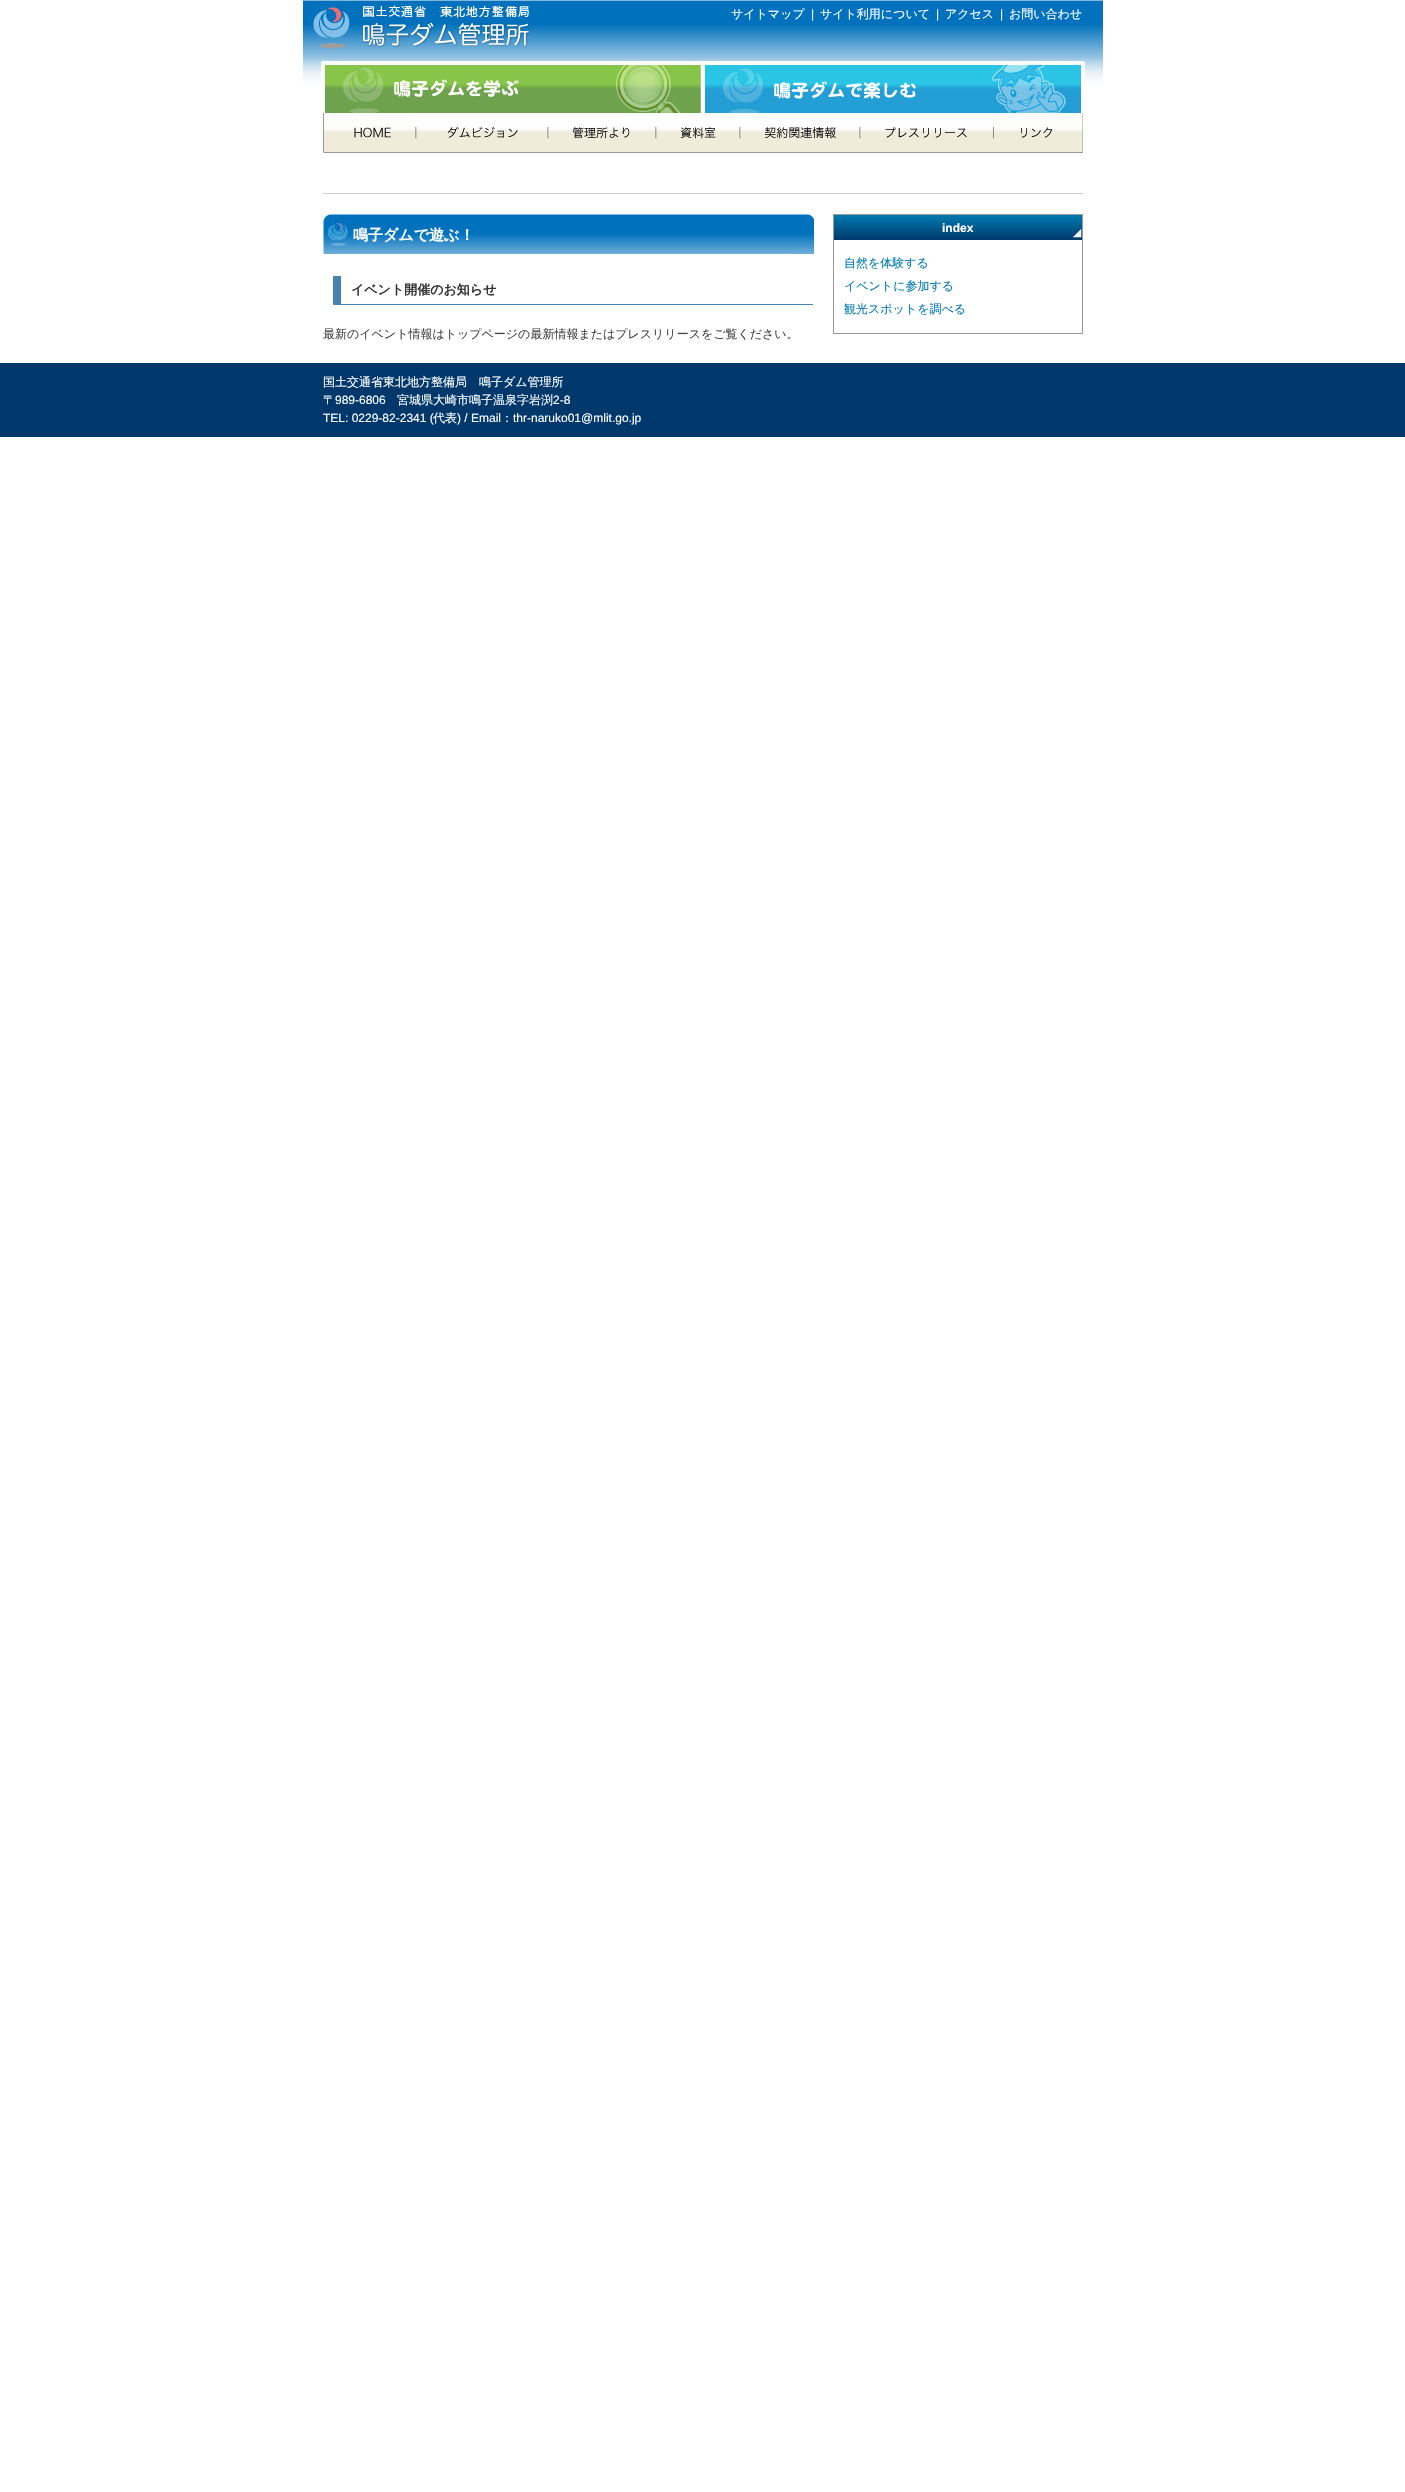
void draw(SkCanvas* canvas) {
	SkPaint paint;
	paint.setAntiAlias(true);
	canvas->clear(0xffffffff);
	canvas->drawImageRect(SkImages::DeferredFromEncodedData(SkData::MakeFromFileName("img1.png")), SkRect::MakeXYWH(303, 0, 800, 58), SkSamplingOptions());
	canvas->drawImageRect(SkImages::DeferredFromEncodedData(SkData::MakeFromFileName("img2.png")), SkRect::MakeXYWH(311, 0, 224, 50), SkSamplingOptions());
	SkFont f1(fontMgr->matchFamilyStyle("WenQuanYi Zen Hei", SkFontStyle(500, SkFontStyle::kNormal_Width, SkFontStyle::kUpright_Slant)), 12);
	f1.setSubpixel(true);
	paint.setColor(0xffffffff);
	canvas->drawString("サイトマップ", 731, 18, f1, paint);
	SkFont f2(fontMgr->matchFamilyStyle("Liberation Sans", SkFontStyle::Normal()), 12);
	f2.setSubpixel(true);
	canvas->drawString("|", 811, 18, f2, paint);
	canvas->drawString("サイト利用について", 820, 18, f1, paint);
	canvas->drawString("|", 936, 18, f2, paint);
	canvas->drawString("アクセス", 945, 18, f1, paint);
	canvas->drawString("|", 1000, 18, f2, paint);
	canvas->drawString("お問い合わせ", 1009, 18, f1, paint);
	canvas->drawImageRect(SkImages::DeferredFromEncodedData(SkData::MakeFromFileName("img3.png")), SkRect::MakeXYWH(303, 58, 400, 55), SkSamplingOptions());
	canvas->drawImageRect(SkImages::DeferredFromEncodedData(SkData::MakeFromFileName("img4.png")), SkRect::MakeXYWH(703, 58, 400, 55), SkSamplingOptions());
	paint.setColor(0xffcccccc);
	canvas->drawRect(SkRect::MakeXYWH(323, 193, 760, 1), paint);
	canvas->drawImageRect(SkImages::DeferredFromEncodedData(SkData::MakeFromFileName("img5.png")), SkRect::MakeXYWH(323, 113, 92, 40), SkSamplingOptions());
	canvas->drawImageRect(SkImages::DeferredFromEncodedData(SkData::MakeFromFileName("img6.png")), SkRect::MakeXYWH(415, 127, 132, 26), SkSamplingOptions());
	canvas->drawImageRect(SkImages::DeferredFromEncodedData(SkData::MakeFromFileName("img7.png")), SkRect::MakeXYWH(547, 127, 108, 26), SkSamplingOptions());
	canvas->drawImageRect(SkImages::DeferredFromEncodedData(SkData::MakeFromFileName("img8.png")), SkRect::MakeXYWH(655, 127, 84, 26), SkSamplingOptions());
	canvas->drawImageRect(SkImages::DeferredFromEncodedData(SkData::MakeFromFileName("img9.png")), SkRect::MakeXYWH(739, 127, 120, 26), SkSamplingOptions());
	canvas->drawImageRect(SkImages::DeferredFromEncodedData(SkData::MakeFromFileName("img10.png")), SkRect::MakeXYWH(859, 127, 132, 26), SkSamplingOptions());
	canvas->drawImageRect(SkImages::DeferredFromEncodedData(SkData::MakeFromFileName("img11.png")), SkRect::MakeXYWH(991, 113, 92, 40), SkSamplingOptions());
	canvas->drawImageRect(SkImages::DeferredFromEncodedData(SkData::MakeFromFileName("img12.png")), SkRect::MakeXYWH(323, 214, 491, 40), SkSamplingOptions());
	SkFont f3(fontMgr->matchFamilyStyle("WenQuanYi Zen Hei", SkFontStyle::Bold()), 15);
	f3.setSubpixel(true);
	paint.setColor(0xffffffff);
	canvas->drawString("鳴子ダムで遊ぶ！", 353, 240, f3, paint);
	paint.setColor(0xff4682b4);
	canvas->drawRect(SkRect::MakeXYWH(333, 304, 480, 1), paint);
	canvas->drawRect(SkRect::MakeXYWH(333, 276, 8, 29), paint);
	SkFont f4(fontMgr->matchFamilyStyle("WenQuanYi Zen Hei", SkFontStyle::Bold()), 13);
	f4.setSubpixel(true);
	paint.setColor(0xff333333);
	canvas->drawString("イベント開催のお知らせ", 351, 294, f4, paint);
	paint.setColor(0xff444444);
	canvas->drawString("最新のイベント情報はトップページの最新情報またはプレスリリースをご覧ください。", 323, 338, f1, paint);
	canvas->drawImageRect(SkImages::DeferredFromEncodedData(SkData::MakeFromFileName("img13.png")), SkRect::MakeXYWH(834, 215, 248, 25), SkSamplingOptions());
	paint.setStroke(true);
	paint.setStrokeWidth(1);
	paint.setColor(0xff999999);
	canvas->drawRect(SkRect::MakeXYWH(833.5, 214.5, 249, 119), paint);
	SkFont f5(fontMgr->matchFamilyStyle("Liberation Sans", SkFontStyle::Bold()), 12);
	f5.setSubpixel(true);
	paint.setStroke(false);
	paint.setColor(0xffffffff);
	canvas->drawString("index", 942, 232, f5, paint);
	paint.setColor(0xff007ab0);
	canvas->drawString("自然を体験する", 844, 267, f1, paint);
	canvas->drawString("イベントに参加する", 844, 290, f1, paint);
	canvas->drawString("観光スポットを調べる", 844, 313, f1, paint);
	paint.setColor(0xff00386b);
	canvas->drawRect(SkRect::MakeXYWH(0, 363, 1405, 74), paint);
	paint.setColor(0xffffffff);
	canvas->drawString("国土交通省東北地方整備局　鳴子ダム管理所", 323, 386, f1, paint);
	canvas->drawString("〒", 323, 404, f1, paint);
	canvas->drawString("989-6806", 335, 404, f2, paint);
	canvas->drawString("宮城県大崎市鳴子温泉字岩渕", 397, 404, f1, paint);
	canvas->drawString("2-8", 553, 404, f2, paint);
	canvas->drawString("TEL: 0229-82-2341 (", 323, 422, f2, paint);
	canvas->drawString("代表", 433, 422, f1, paint);
	canvas->drawString(") / Email", 457, 422, f2, paint);
	canvas->drawString("：", 501, 422, f1, paint);
	canvas->drawString("thr-naruko01@mlit.go.jp", 513, 422, f2, paint);
}
